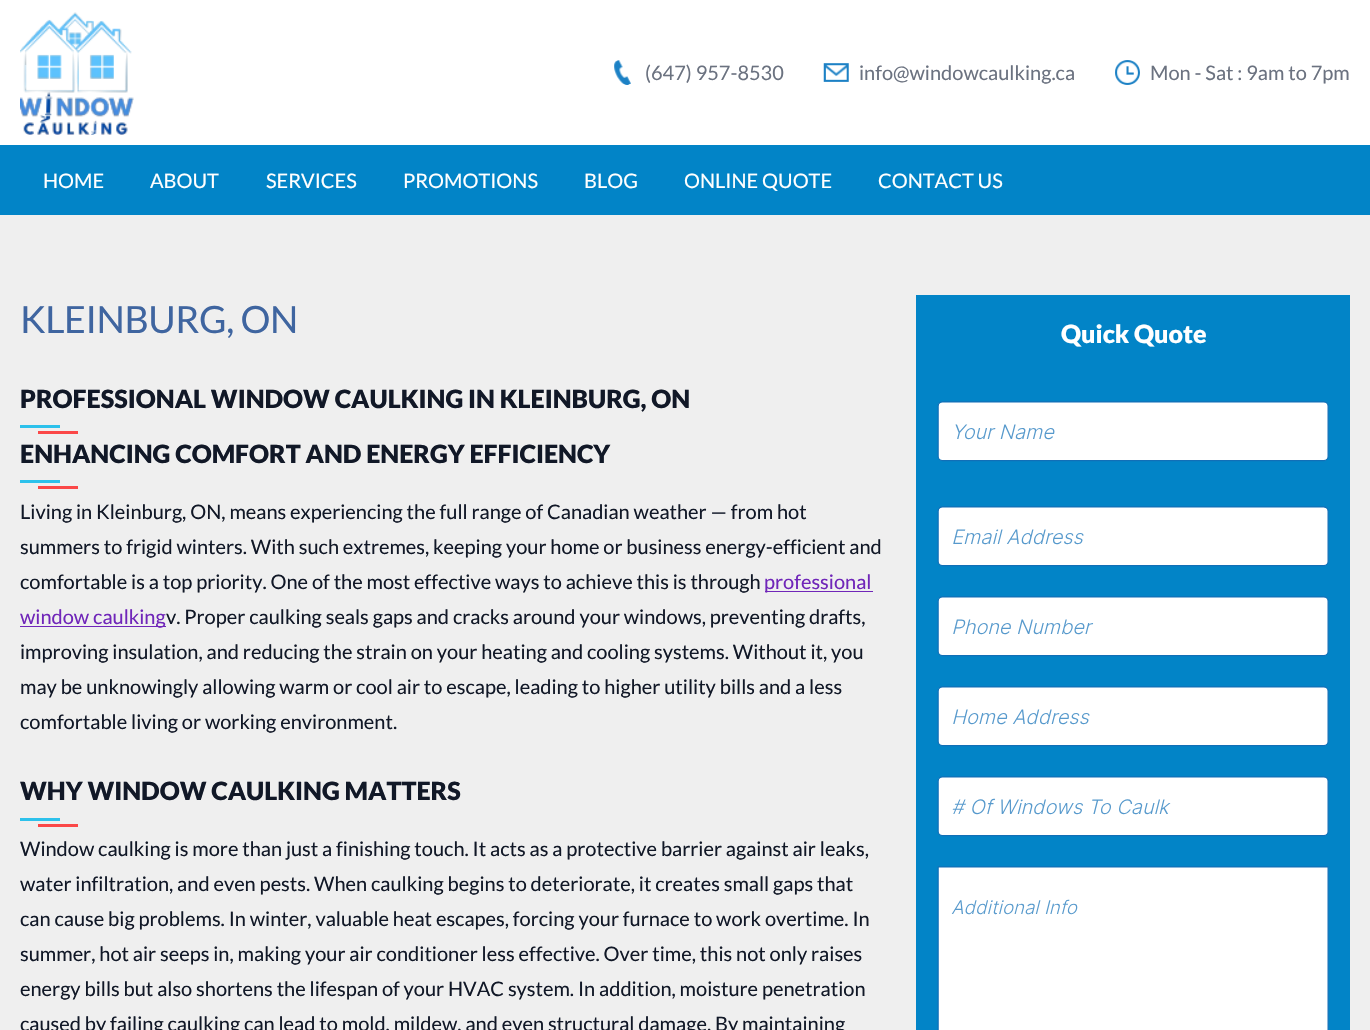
void draw(SkCanvas* canvas) {
	SkPaint paint;
	paint.setAntiAlias(true);
	auto spacedText = [&](const char* s, float x, float y, const SkFont& font, const SkPaint& ink, float letter, float word) {
		std::vector<SkGlyphID> glyphs(font.countText(s, strlen(s), SkTextEncoding::kUTF8));
		std::vector<float> xs(glyphs.size());
		font.textToGlyphs(s, strlen(s), SkTextEncoding::kUTF8, glyphs);
		font.getXPos(glyphs, xs, x);
		float extra = 0;
		for (size_t i = 0; i < glyphs.size(); i++) {
			xs[i] += extra;
			extra += letter + word * (glyphs[i] == font.unicharToGlyph(' '));
		}
		canvas->drawTextBlob(SkTextBlob::MakeFromPosHGlyphs(glyphs, xs, y, font), 0, 0, ink);
	};
	canvas->clear(0xffffffff);
	canvas->drawImageRect(SkImages::DeferredFromEncodedData(SkData::MakeFromFileName("img1.png")), SkRect::MakeXYWH(20, 12, 114, 123), SkSamplingOptions());
	canvas->drawImageRect(SkImages::DeferredFromEncodedData(SkData::MakeFromFileName("img2.png")), SkRect::MakeXYWH(614, 60, 17, 25), SkSamplingOptions());
	SkFont f1(fontMgr->matchFamilyStyle("Lato", SkFontStyle::Normal()), 20);
	f1.setSubpixel(true);
	paint.setColor(0xff6b7280);
	canvas->drawString("(647) 957-8530", 645, 80, f1, paint);
	canvas->drawImageRect(SkImages::DeferredFromEncodedData(SkData::MakeFromFileName("img3.png")), SkRect::MakeXYWH(823, 63, 26, 19), SkSamplingOptions());
	canvas->drawString("info@windowcaulking.ca", 859, 80, f1, paint);
	canvas->drawImageRect(SkImages::DeferredFromEncodedData(SkData::MakeFromFileName("img4.png")), SkRect::MakeXYWH(1115, 60, 25, 25), SkSamplingOptions());
	canvas->drawString("Mon - Sat : 9am to 7pm", 1150, 80, f1, paint);
	paint.setColor(0xff0284c7);
	canvas->drawRect(SkRect::MakeXYWH(0, 145, 1370, 70), paint);
	paint.setColor(0xffffffff);
	canvas->drawString("HOME", 43, 188, f1, paint);
	canvas->drawString("ABOUT", 150, 188, f1, paint);
	canvas->drawString("SERVICES", 266, 188, f1, paint);
	canvas->drawString("PROMOTIONS", 403, 188, f1, paint);
	canvas->drawString("BLOG", 584, 188, f1, paint);
	canvas->drawString("ONLINE QUOTE", 684, 188, f1, paint);
	canvas->drawString("CONTACT US", 878, 188, f1, paint);
	paint.setColor(0xffefefef);
	canvas->drawRect(SkRect::MakeXYWH(0, 215, 1370, 815), paint);
	SkFont f2(fontMgr->matchFamilyStyle("Lato", SkFontStyle::Normal()), 37.5);
	f2.setSubpixel(true);
	paint.setColor(0xff3f65a0);
	spacedText("KLEINBURG, ON", 20, 333, f2, paint, -0.4, 0);
	SkFont f3(fontMgr->matchFamilyStyle("Lato", SkFontStyle(900, SkFontStyle::kNormal_Width, SkFontStyle::kUpright_Slant)), 25);
	f3.setSubpixel(true);
	paint.setColor(0xff111827);
	canvas->drawString("PROFESSIONAL WINDOW CAULKING IN KLEINBURG, ON", 20, 408, f3, paint);
	paint.setColor(0xff2dc1eb);
	canvas->drawRect(SkRect::MakeXYWH(20, 425, 40, 3), paint);
	paint.setColor(0xfffb4848);
	canvas->drawRect(SkRect::MakeXYWH(38, 431, 40, 3), paint);
	paint.setColor(0xff111827);
	canvas->drawString("ENHANCING COMFORT AND ENERGY EFFICIENCY", 20, 463, f3, paint);
	paint.setColor(0xff2dc1eb);
	canvas->drawRect(SkRect::MakeXYWH(20, 480, 40, 3), paint);
	paint.setColor(0xfffb4848);
	canvas->drawRect(SkRect::MakeXYWH(38, 486, 40, 3), paint);
	paint.setColor(0xff111827);
	canvas->drawString("Living in Kleinburg, ON, means experiencing the full range of Canadian weather — from hot", 20, 519, f1, paint);
	canvas->drawString("summers to frigid winters. With such extremes, keeping your home or business energy-efficient and", 20, 554, f1, paint);
	canvas->drawString("comfortable is a top priority. One of the most effective ways to achieve this is through", 20, 589, f1, paint);
	paint.setColor(0xff7026b9);
	canvas->drawRect(SkRect::MakeXYWH(765, 591, 108, 1), paint);
	canvas->drawString("professional", 764, 589, f1, paint);
	canvas->drawRect(SkRect::MakeXYWH(20, 626, 146, 1), paint);
	canvas->drawString("window caulking", 20, 624, f1, paint);
	paint.setColor(0xff111827);
	canvas->drawString("v. Proper caulking seals gaps and cracks around your windows, preventing drafts,", 166, 624, f1, paint);
	canvas->drawString("improving insulation, and reducing the strain on your heating and cooling systems. Without it, you", 20, 659, f1, paint);
	canvas->drawString("may be unknowingly allowing warm or cool air to escape, leading to higher utility bills and a less", 20, 694, f1, paint);
	canvas->drawString("comfortable living or working environment.", 20, 729, f1, paint);
	canvas->drawString("WHY WINDOW CAULKING MATTERS", 20, 800, f3, paint);
	paint.setColor(0xff2dc1eb);
	canvas->drawRect(SkRect::MakeXYWH(20, 818, 40, 3), paint);
	paint.setColor(0xfffb4848);
	canvas->drawRect(SkRect::MakeXYWH(38, 824, 40, 3), paint);
	paint.setColor(0xff111827);
	canvas->drawString("Window caulking is more than just a finishing touch. It acts as a protective barrier against air leaks,", 20, 856, f1, paint);
	canvas->drawString("water infiltration, and even pests. When caulking begins to deteriorate, it creates small gaps that", 20, 891, f1, paint);
	canvas->drawString("can cause big problems. In winter, valuable heat escapes, forcing your furnace to work overtime. In", 20, 926, f1, paint);
	canvas->drawString("summer, hot air seeps in, making your air conditioner less effective. Over time, this not only raises", 20, 961, f1, paint);
	canvas->drawString("energy bills but also shortens the lifespan of your HVAC system. In addition, moisture penetration", 20, 996, f1, paint);
	canvas->drawString("caused by failing caulking can lead to mold, mildew, and even structural damage. By maintaining", 20, 1031, f1, paint);
	paint.setColor(0xff0284c7);
	canvas->drawRect(SkRect::MakeXYWH(916, 295, 434, 735), paint);
	paint.setColor(0xffffffff);
	canvas->drawString("Quick Quote", 1061, 343, f3, paint);
	canvas->drawImageRect(SkImages::DeferredFromEncodedData(SkData::MakeFromFileName("img5.png")), SkRect::MakeXYWH(937, 401, 392, 629), SkSamplingOptions());
}
